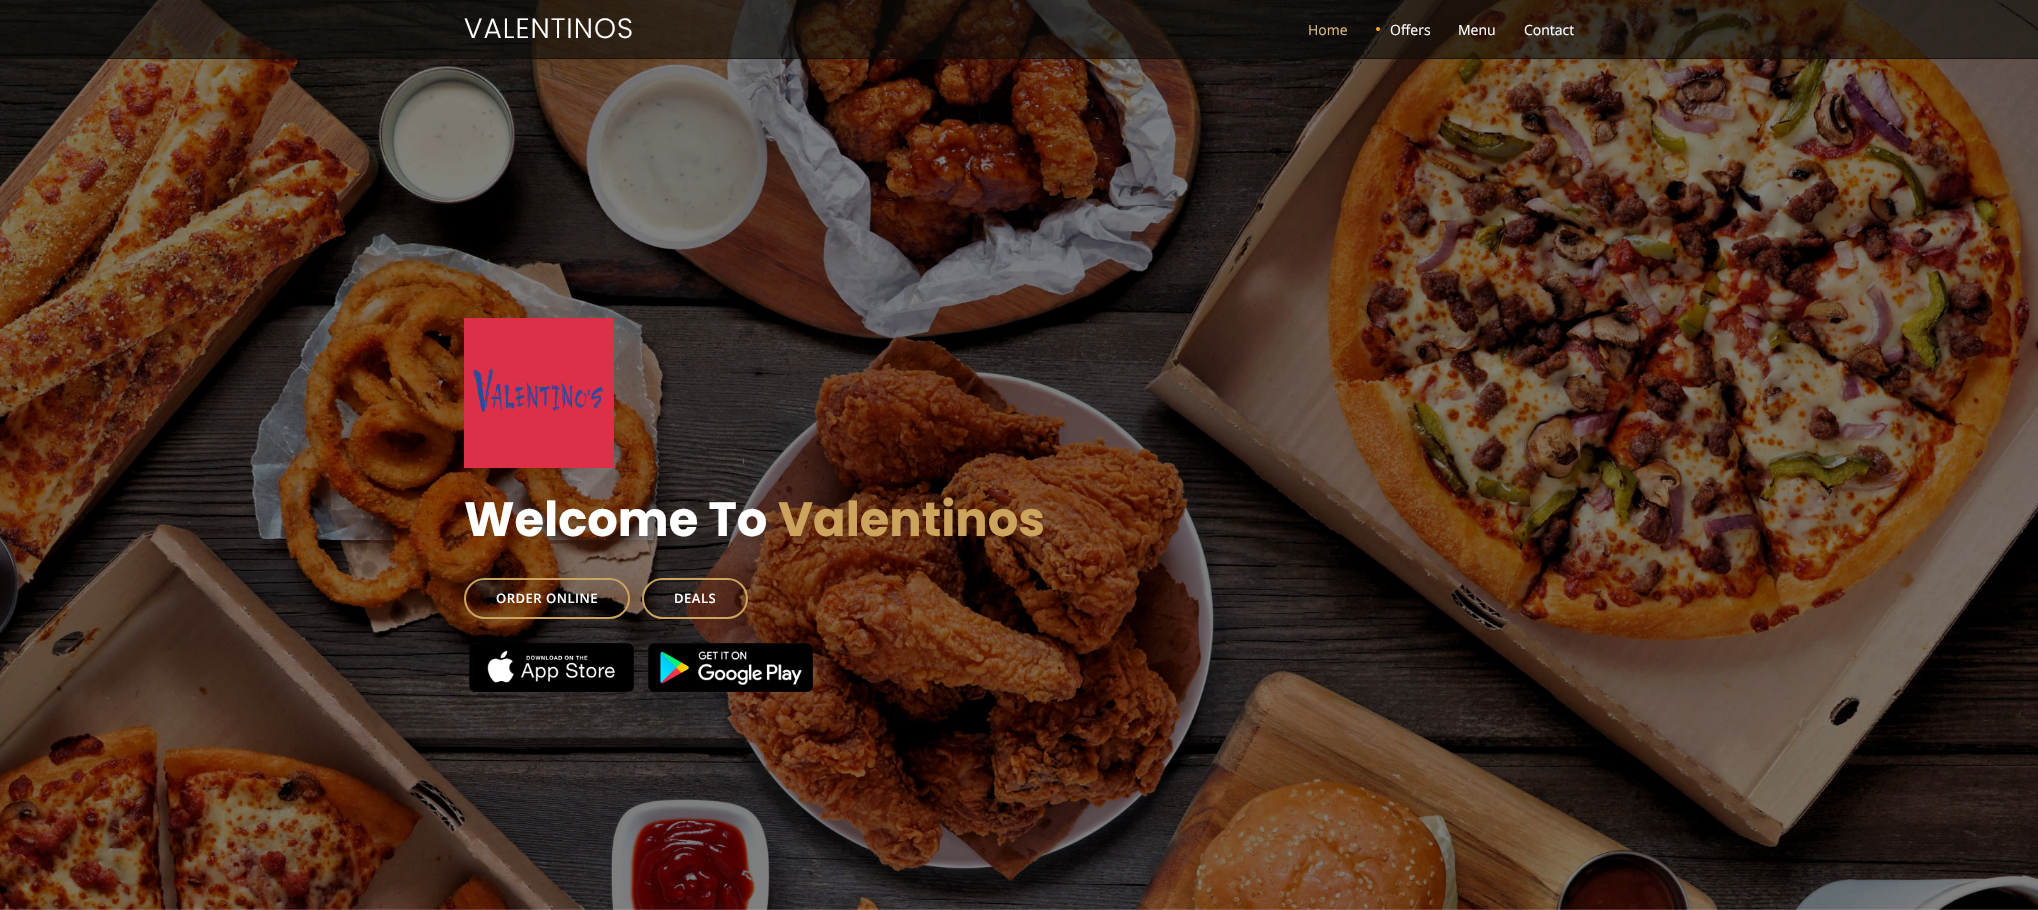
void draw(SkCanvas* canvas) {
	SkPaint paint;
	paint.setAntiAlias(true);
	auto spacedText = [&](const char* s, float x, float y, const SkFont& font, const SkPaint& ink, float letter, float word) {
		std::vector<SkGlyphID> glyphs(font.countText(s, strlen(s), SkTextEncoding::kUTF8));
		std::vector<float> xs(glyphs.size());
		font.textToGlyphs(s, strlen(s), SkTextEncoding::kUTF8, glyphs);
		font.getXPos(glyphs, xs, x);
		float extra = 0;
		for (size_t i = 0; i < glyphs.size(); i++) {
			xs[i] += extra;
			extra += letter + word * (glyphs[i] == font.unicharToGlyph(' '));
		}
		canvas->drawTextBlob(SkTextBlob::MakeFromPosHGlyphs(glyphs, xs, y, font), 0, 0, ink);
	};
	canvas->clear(0xffffffff);
	canvas->drawImageRect(SkImages::DeferredFromEncodedData(SkData::MakeFromFileName("img1.png")), SkRect::MakeXYWH(0, 0, 2038, 910), SkSamplingOptions());
	paint.setColor(0x990c0b09);
	canvas->drawRect(SkRect::MakeXYWH(0, 0, 2038, 59), paint);
	canvas->drawRect(SkRect::MakeXYWH(0, 58, 2038, 1), paint);
	SkFont f1(fontMgr->matchFamilyStyle("Poppins", SkFontStyle(300, SkFontStyle::kNormal_Width, SkFontStyle::kUpright_Slant)), 28);
	f1.setSubpixel(true);
	paint.setColor(0xffffffff);
	spacedText("VALENTINOS", 464, 38, f1, paint, 1, 0);
	SkFont f2(fontMgr->matchFamilyStyle("Open Sans", SkFontStyle::Normal()), 14);
	f2.setSubpixel(true);
	paint.setColor(0xffd9ba85);
	canvas->drawString("Home", 1308, 35, f2, paint);
	paint.setColor(0xffffa829);
	canvas->drawCircle(1378, 29, 2, paint);
	paint.setColor(0xffffffff);
	canvas->drawString("Offers", 1390, 35, f2, paint);
	canvas->drawString("Menu", 1458, 35, f2, paint);
	canvas->drawString("Contact", 1524, 35, f2, paint);
	canvas->drawImageRect(SkImages::DeferredFromEncodedData(SkData::MakeFromFileName("img2.png")), SkRect::MakeXYWH(464, 318, 150, 150), SkSamplingOptions());
	SkFont f3(fontMgr->matchFamilyStyle("Poppins", SkFontStyle::Bold()), 48);
	f3.setSubpixel(true);
	canvas->drawString("Welcome To", 464, 536, f3, paint);
	paint.setColor(0xffcda45e);
	canvas->drawString("Valentinos", 778, 536, f3, paint);
	paint.setStroke(true);
	paint.setStrokeWidth(2);
	canvas->drawRoundRect(SkRect::MakeXYWH(465, 579, 164, 39), 19.5, 19.5, paint);
	SkFont f4(fontMgr->matchFamilyStyle("Open Sans", SkFontStyle(600, SkFontStyle::kNormal_Width, SkFontStyle::kUpright_Slant)), 13);
	f4.setSubpixel(true);
	paint.setStroke(false);
	paint.setColor(0xffffffff);
	spacedText("ORDER ONLINE", 496, 603, f4, paint, 0.5, 0);
	paint.setStroke(true);
	paint.setColor(0xffcda45e);
	canvas->drawRoundRect(SkRect::MakeXYWH(643, 579, 104, 39), 19.5, 19.5, paint);
	paint.setStroke(false);
	paint.setColor(0xffffffff);
	spacedText("DEALS", 674, 603, f4, paint, 0.5, 0);
	canvas->drawImageRect(SkImages::DeferredFromEncodedData(SkData::MakeFromFileName("img3.png")), SkRect::MakeXYWH(469, 643, 165, 49), SkSamplingOptions());
	canvas->drawImageRect(SkImages::DeferredFromEncodedData(SkData::MakeFromFileName("img4.png")), SkRect::MakeXYWH(648, 643, 165, 49), SkSamplingOptions());
}
